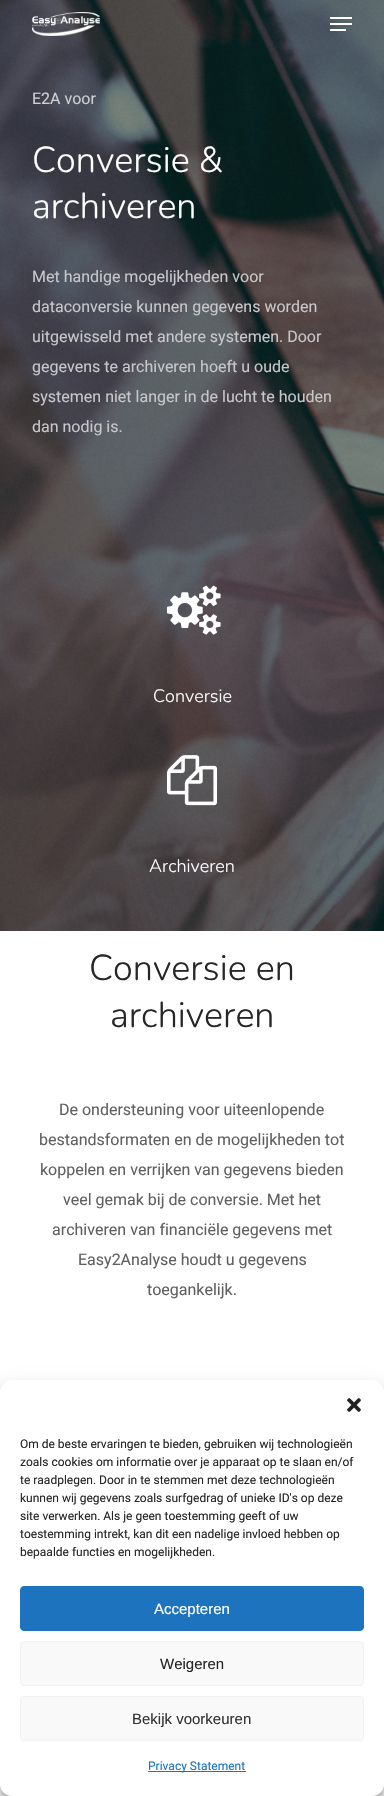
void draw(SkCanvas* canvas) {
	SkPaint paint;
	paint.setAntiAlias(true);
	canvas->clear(0xffffffff);
	canvas->drawImageRect(SkImages::DeferredFromEncodedData(SkData::MakeFromFileName("img2.png")), SkRect::MakeXYWH(0, 0, 384, 931), SkSamplingOptions());
	canvas->drawImageRect(SkImages::DeferredFromEncodedData(SkData::MakeFromFileName("img1.png")), SkRect::MakeXYWH(32, 12, 68, 24), SkSamplingOptions());
	paint.setColor(0xffffffff);
	canvas->drawRect(SkRect::MakeXYWH(330, 17, 22, 2), paint);
	canvas->drawRect(SkRect::MakeXYWH(330, 29, 16, 2), paint);
	canvas->drawRect(SkRect::MakeXYWH(330, 23, 22, 2), paint);
	SkFont f1(fontMgr->matchFamilyStyle("Roboto", SkFontStyle::Normal()), 16);
	f1.setSubpixel(true);
	paint.setColor(0xffcfd0d3);
	canvas->drawString("E2A voor", 32, 104, f1, paint);
	SkFont f2(fontMgr->matchFamilyStyle("Nunito", SkFontStyle(300, SkFontStyle::kNormal_Width, SkFontStyle::kUpright_Slant)), 36);
	f2.setSubpixel(true);
	paint.setColor(0xffffffff);
	canvas->drawString("Conversie &", 32, 172, f2, paint);
	canvas->drawString("archiveren", 32, 218, f2, paint);
	paint.setColor(0xffc7c7ca);
	canvas->drawString("Met handige mogelijkheden voor", 32, 282, f1, paint);
	canvas->drawString("dataconversie kunnen gegevens worden", 32, 312, f1, paint);
	canvas->drawString("uitgewisseld met andere systemen. Door", 32, 342, f1, paint);
	canvas->drawString("gegevens te archiveren hoeft u oude", 32, 372, f1, paint);
	canvas->drawString("systemen niet langer in de lucht te houden", 32, 402, f1, paint);
	canvas->drawString("dan nodig is.", 32, 432, f1, paint);
	canvas->drawImageRect(SkImages::DeferredFromEncodedData(SkData::MakeFromFileName("img3.png")), SkRect::MakeXYWH(167, 585, 54, 50), SkSamplingOptions());
	SkFont f3(fontMgr->matchFamilyStyle("Nunito", SkFontStyle(300, SkFontStyle::kNormal_Width, SkFontStyle::kUpright_Slant)), 18);
	f3.setSubpixel(true);
	paint.setColor(0xffffffff);
	canvas->drawString("Conversie", 153, 702, f3, paint);
	canvas->drawImageRect(SkImages::DeferredFromEncodedData(SkData::MakeFromFileName("img4.png")), SkRect::MakeXYWH(167, 755, 50, 51), SkSamplingOptions());
	canvas->drawString("Archiveren", 149, 872, f3, paint);
	paint.setColor(0xff262626);
	canvas->drawString("Conversie en", 89, 980, f2, paint);
	canvas->drawString("archiveren", 110, 1027, f2, paint);
	paint.setColor(0xff606060);
	canvas->drawString("De ondersteuning voor uiteenlopende", 59, 1115, f1, paint);
	canvas->drawString("bestandsformaten en de mogelijkheden tot", 39, 1145, f1, paint);
	canvas->drawString("koppelen en verrijken van gegevens bieden", 40, 1175, f1, paint);
	canvas->drawString("veel gemak bij de conversie. Met het", 63, 1205, f1, paint);
	canvas->drawString("archiveren van financiële gegevens met", 52, 1235, f1, paint);
	canvas->drawString("Easy2Analyse houdt u gegevens", 78, 1265, f1, paint);
	canvas->drawString("toegankelijk.", 147, 1295, f1, paint);
	paint.setColor(0x3b000000);
	paint.setMaskFilter(SkMaskFilter::MakeBlur(kNormal_SkBlurStyle, 3));
	canvas->drawRoundRect(SkRect::MakeXYWH(0, 1386, 384, 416), 12, 12, paint);
	paint.setMaskFilter(nullptr);
	paint.setColor(0x30000000);
	paint.setMaskFilter(SkMaskFilter::MakeBlur(kNormal_SkBlurStyle, 10));
	canvas->drawRoundRect(SkRect::MakeXYWH(0, 1390, 384, 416), 12, 12, paint);
	paint.setMaskFilter(nullptr);
	paint.setColor(0xffffffff);
	canvas->drawRoundRect(SkRect::MakeXYWH(0, 1380, 384, 416), 12, 12, paint);
	canvas->drawImageRect(SkImages::DeferredFromEncodedData(SkData::MakeFromFileName("img5.png")), SkRect::MakeXYWH(347, 1398, 14, 14), SkSamplingOptions());
	SkFont f4(fontMgr->matchFamilyStyle("Roboto", SkFontStyle::Normal()), 12);
	f4.setSubpixel(true);
	paint.setColor(0xff262626);
	canvas->drawString("Om de beste ervaringen te bieden, gebruiken wij technologieën", 20, 1448, f4, paint);
	canvas->drawString("zoals cookies om informatie over je apparaat op te slaan en/of", 20, 1466, f4, paint);
	canvas->drawString("te raadplegen. Door in te stemmen met deze technologieën", 20, 1484, f4, paint);
	canvas->drawString("kunnen wij gegevens zoals surfgedrag of unieke ID's op deze", 20, 1502, f4, paint);
	canvas->drawString("site verwerken. Als je geen toestemming geeft of uw", 20, 1520, f4, paint);
	canvas->drawString("toestemming intrekt, kan dit een nadelige invloed hebben op", 20, 1538, f4, paint);
	canvas->drawString("bepaalde functies en mogelijkheden.", 20, 1556, f4, paint);
	paint.setColor(0xff1e73be);
	canvas->drawRoundRect(SkRect::MakeXYWH(20.5, 1586.5, 343, 44), 3.5, 3.5, paint);
	paint.setStroke(true);
	paint.setStrokeWidth(1);
	canvas->drawRoundRect(SkRect::MakeXYWH(20.5, 1586.5, 343, 44), 3.5, 3.5, paint);
	SkFont f5(fontMgr->matchFamilyStyle("Liberation Sans", SkFontStyle::Normal()), 15);
	f5.setSubpixel(true);
	paint.setStroke(false);
	paint.setColor(0xffffffff);
	canvas->drawString("Accepteren", 154, 1614, f5, paint);
	paint.setColor(0xfff9f9f9);
	canvas->drawRoundRect(SkRect::MakeXYWH(20.5, 1641.5, 343, 44), 3.5, 3.5, paint);
	paint.setStroke(true);
	paint.setColor(0xfff2f2f2);
	canvas->drawRoundRect(SkRect::MakeXYWH(20.5, 1641.5, 343, 44), 3.5, 3.5, paint);
	paint.setStroke(false);
	paint.setColor(0xff262626);
	canvas->drawString("Weigeren", 160, 1669, f5, paint);
	paint.setColor(0xfff9f9f9);
	canvas->drawRoundRect(SkRect::MakeXYWH(20.5, 1696.5, 343, 44), 3.5, 3.5, paint);
	paint.setStroke(true);
	paint.setColor(0xfff2f2f2);
	canvas->drawRoundRect(SkRect::MakeXYWH(20.5, 1696.5, 343, 44), 3.5, 3.5, paint);
	paint.setStroke(false);
	paint.setColor(0xff333333);
	canvas->drawString("Bekijk voorkeuren", 132, 1724, f5, paint);
	paint.setColor(0xff1e73be);
	canvas->drawRect(SkRect::MakeXYWH(148, 1771, 98, 1), paint);
	canvas->drawString("Privacy Statement", 148, 1770, f4, paint);
}
